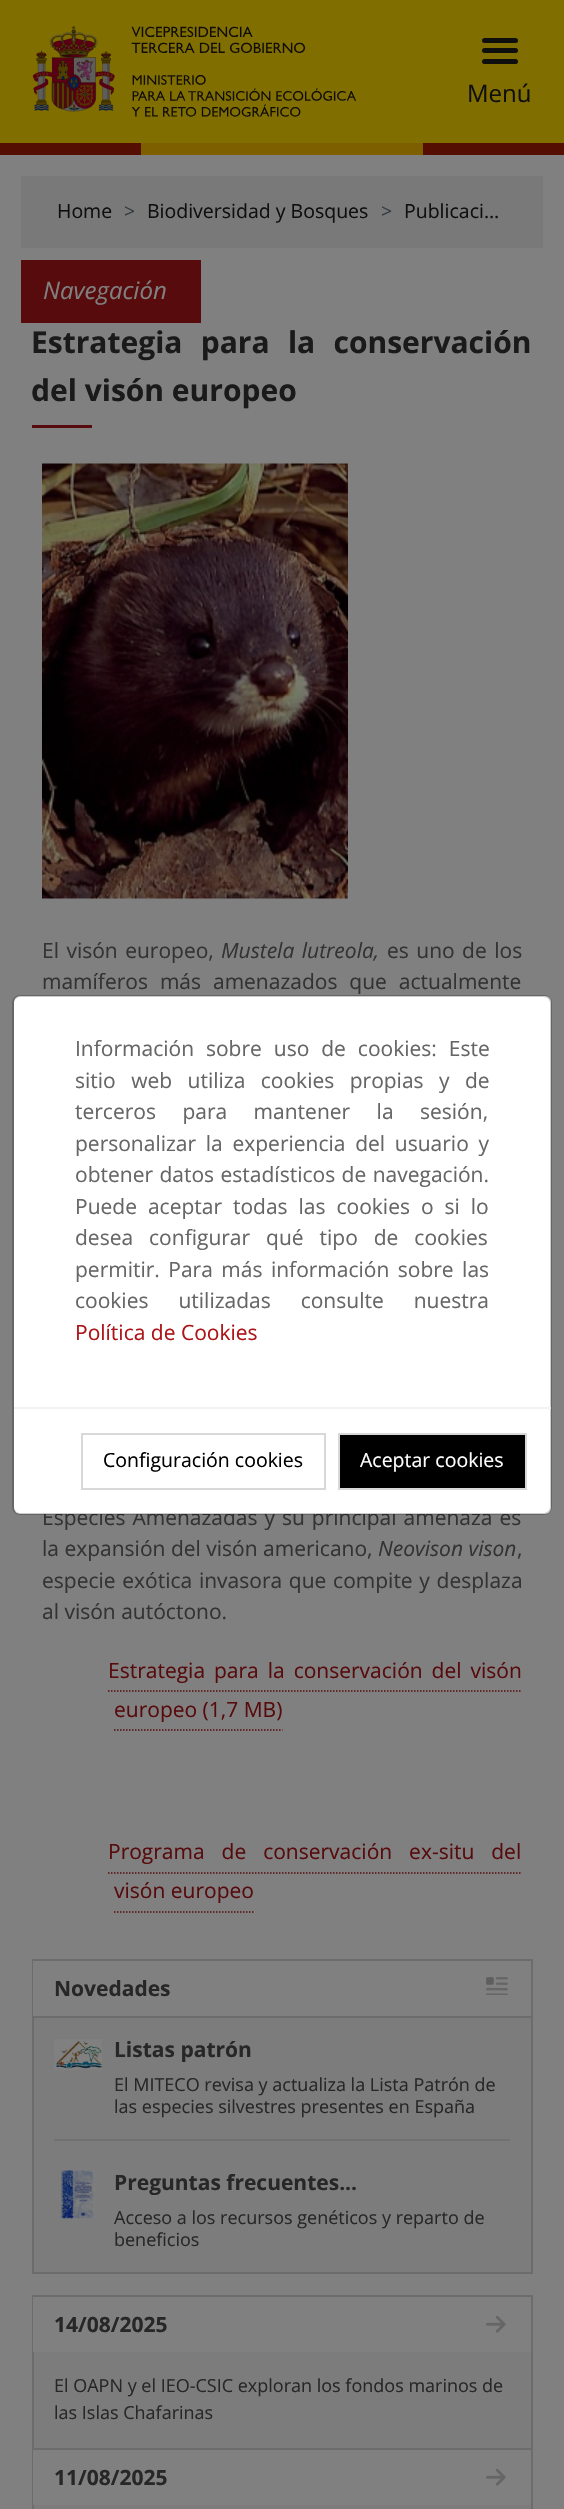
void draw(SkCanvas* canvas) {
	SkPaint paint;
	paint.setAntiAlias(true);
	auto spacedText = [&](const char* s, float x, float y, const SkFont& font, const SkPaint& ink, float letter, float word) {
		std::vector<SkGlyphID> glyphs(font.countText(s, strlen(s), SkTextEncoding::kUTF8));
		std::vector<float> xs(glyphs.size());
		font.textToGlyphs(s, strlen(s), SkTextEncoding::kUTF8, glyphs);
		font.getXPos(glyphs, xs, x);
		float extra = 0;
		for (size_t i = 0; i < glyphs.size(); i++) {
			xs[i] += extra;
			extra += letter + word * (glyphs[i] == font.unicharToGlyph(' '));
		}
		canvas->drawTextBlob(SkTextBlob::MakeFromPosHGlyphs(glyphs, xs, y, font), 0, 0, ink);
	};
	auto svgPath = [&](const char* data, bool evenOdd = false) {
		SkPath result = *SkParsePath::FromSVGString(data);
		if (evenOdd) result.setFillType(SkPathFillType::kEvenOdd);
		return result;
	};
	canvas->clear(0xff808080);
	paint.setColor(0xff806e00);
	canvas->drawRect(SkRect::MakeXYWH(0, 0, 564, 143), paint);
	paint.setColor(0xff7e5f00);
	canvas->drawRect(SkRect::MakeXYWH(141, 143, 282, 12), paint);
	canvas->drawImageRect(SkImages::DeferredFromEncodedData(SkData::MakeFromFileName("img1.png")), SkRect::MakeXYWH(32, 26, 324, 91), SkSamplingOptions());
	paint.setColor(0xff0f0f0e);
	canvas->drawRoundRect(SkRect::MakeXYWH(482, 38, 36, 5), 2.5, 2.5, paint);
	canvas->drawRoundRect(SkRect::MakeXYWH(482, 48, 36, 5), 2.5, 2.5, paint);
	canvas->drawRoundRect(SkRect::MakeXYWH(482, 59, 36, 5), 2.5, 2.5, paint);
	SkFont f1(fontMgr->matchFamilyStyle("Open Sans", SkFontStyle::Normal()), 24);
	f1.setSubpixel(true);
	paint.setColor(0xff0f0f0f);
	canvas->drawString("Menú", 467, 102, f1, paint);
	paint.setColor(0xff540f02);
	canvas->drawRect(SkRect::MakeXYWH(0, 143, 141, 12), paint);
	canvas->drawRect(SkRect::MakeXYWH(423, 143, 141, 12), paint);
	paint.setColor(0xff797979);
	canvas->drawRect(SkRect::MakeXYWH(21, 176, 522, 72), paint);
	SkFont f2(fontMgr->matchFamilyStyle("Open Sans", SkFontStyle::Normal()), 19.5);
	f2.setSubpixel(true);
	paint.setColor(0xff0f0f0f);
	canvas->drawString("Home", 57, 218, f2, paint);
	paint.setColor(0xff363b3f);
	canvas->drawString(">", 124, 218, f2, paint);
	paint.setColor(0xff0f0f0f);
	canvas->drawString("Biodiversidad y Bosques", 147, 218, f2, paint);
	paint.setColor(0xff363b3f);
	canvas->drawString(">", 381, 218, f2, paint);
	paint.setColor(0xff0f0f0f);
	canvas->drawString("Publicaci…", 404, 218, f2, paint);
	paint.setColor(0xff570b0d);
	canvas->drawRect(SkRect::MakeXYWH(21, 260, 180, 63), paint);
	SkFont f3(fontMgr->matchFamilyStyle("Open Sans", SkFontStyle::Italic()), 24);
	f3.setSubpixel(true);
	paint.setColor(0xff808080);
	canvas->drawString("Navegación", 43, 299, f3, paint);
	SkFont f4(fontMgr->matchFamilyStyle("Open Sans", SkFontStyle::Bold()), 30);
	f4.setSubpixel(true);
	paint.setColor(0xff1a1a1a);
	spacedText("Estrategia para la conservación", 31, 353, f4, paint, 0, 10.5);
	canvas->drawString("del visón europeo", 31, 401, f4, paint);
	paint.setColor(0xff570b0d);
	canvas->drawRect(SkRect::MakeXYWH(32, 425, 60, 3), paint);
	canvas->drawImageRect(SkImages::DeferredFromEncodedData(SkData::MakeFromFileName("img2.png")), SkRect::MakeXYWH(42, 463, 306, 436), SkSamplingOptions());
	SkFont f5(fontMgr->matchFamilyStyle("Open Sans", SkFontStyle::Normal()), 21);
	f5.setSubpixel(true);
	paint.setColor(0xff333333);
	spacedText("El visón europeo,", 42, 958, f5, paint, 0, 2);
	SkFont f6(fontMgr->matchFamilyStyle("Open Sans", SkFontStyle::Italic()), 21);
	f6.setSubpixel(true);
	spacedText("Mustela lutreola,", 221, 958, f6, paint, 0, 2);
	spacedText("es uno de los", 387, 958, f5, paint, 0, 2);
	spacedText("mamíferos más amenazados que actualmente", 42, 989, f5, paint, 0, 6.5);
	spacedText("Especies Amenazadas y su principal amenaza es", 42, 1525, f5, paint, 0, 1.5);
	canvas->drawString("la expansión del visón americano,", 42, 1556, f5, paint);
	canvas->drawString("Neovison vison", 378, 1556, f6, paint);
	canvas->drawString(",", 517, 1556, f5, paint);
	spacedText("especie exótica invasora que compite y desplaza", 42, 1588, f5, paint, 0, 1.25);
	canvas->drawString("al visón autóctono.", 42, 1619, f5, paint);
	paint.setColor(0xff570b0d);
	spacedText("Estrategia para la conservación del visón", 108, 1678, f5, paint, 0, 3.5);
	paint.setStroke(true);
	paint.setStrokeWidth(1.5);
	paint.setPathEffect(SkDashPathEffect::Make({{1.5f, 1.5f}}, 0));
	canvas->drawPath(svgPath("M108 1691H522"), paint);
	paint.setPathEffect(nullptr);
	paint.setStroke(false);
	canvas->drawString("europeo (1,7 MB)", 114, 1717, f5, paint);
	paint.setStroke(true);
	paint.setPathEffect(SkDashPathEffect::Make({{1.5f, 1.5f}}, 0));
	canvas->drawPath(svgPath("M114 1730H282.5"), paint);
	paint.setPathEffect(nullptr);
	paint.setStroke(false);
	spacedText("Programa de conservación ex-situ del", 108, 1859, f5, paint, 0, 11.5);
	canvas->drawString("visón europeo", 114, 1898, f5, paint);
	paint.setStroke(true);
	paint.setPathEffect(SkDashPathEffect::Make({{1.5f, 1.5f}}, 0));
	canvas->drawPath(svgPath("M108 1873H522"), paint);
	paint.setPathEffect(nullptr);
	paint.setPathEffect(SkDashPathEffect::Make({{1.5f, 1.5f}}, 0));
	canvas->drawPath(svgPath("M114 1912H254"), paint);
	paint.setPathEffect(nullptr);
	paint.setStroke(false);
	paint.setColor(0xff7c7c7c);
	canvas->drawRect(SkRect::MakeXYWH(34, 2018, 497, 254), paint);
	paint.setStroke(true);
	paint.setStrokeWidth(2);
	paint.setColor(0xff6c6c6c);
	canvas->drawRect(SkRect::MakeXYWH(33, 1960, 499, 313), paint);
	paint.setStroke(false);
	paint.setColor(0xff808080);
	canvas->drawRect(SkRect::MakeXYWH(33, 1961, 1, 55), paint);
	paint.setColor(0xff6c6c6c);
	canvas->drawRect(SkRect::MakeXYWH(33, 2016, 498, 2), paint);
	SkFont f7(fontMgr->matchFamilyStyle("Open Sans", SkFontStyle::Bold()), 21);
	f7.setSubpixel(true);
	paint.setColor(0xff272727);
	canvas->drawString("Novedades", 54, 1996, f7, paint);
	canvas->drawImageRect(SkImages::DeferredFromEncodedData(SkData::MakeFromFileName("img3.png")), SkRect::MakeXYWH(486, 1977, 22, 18), SkSamplingOptions());
	paint.setColor(0xff717171);
	canvas->drawRect(SkRect::MakeXYWH(54, 2139, 456, 2), paint);
	canvas->drawImageRect(SkImages::DeferredFromEncodedData(SkData::MakeFromFileName("img4.png")), SkRect::MakeXYWH(54, 2039, 48, 31), SkSamplingOptions());
	paint.setColor(0xff272727);
	canvas->drawString("Listas patrón", 114, 2057, f7, paint);
	SkFont f8(fontMgr->matchFamilyStyle("Open Sans", SkFontStyle::Normal()), 18);
	f8.setSubpixel(true);
	canvas->drawString("El MITECO revisa y actualiza la Lista Patrón de", 114, 2091, f8, paint);
	canvas->drawString("las especies silvestres presentes en España", 114, 2113, f8, paint);
	canvas->drawImageRect(SkImages::DeferredFromEncodedData(SkData::MakeFromFileName("img5.png")), SkRect::MakeXYWH(61, 2170, 34, 49), SkSamplingOptions());
	canvas->drawString("Preguntas frecuentes...", 114, 2190, f7, paint);
	canvas->drawString("Acceso a los recursos genéticos y reparto de", 114, 2224, f8, paint);
	canvas->drawString("beneficios", 114, 2246, f8, paint);
	paint.setColor(0xff7c7c7c);
	canvas->drawRect(SkRect::MakeXYWH(34, 2352, 497, 96), paint);
	paint.setStroke(true);
	paint.setColor(0xff6c6c6c);
	canvas->drawRect(SkRect::MakeXYWH(33, 2296, 499, 153), paint);
	paint.setStroke(false);
	paint.setColor(0xff808080);
	canvas->drawRect(SkRect::MakeXYWH(33, 2297, 1, 55), paint);
	paint.setColor(0xff272727);
	canvas->drawString("14/08/2025", 54, 2332, f7, paint);
	canvas->drawImageRect(SkImages::DeferredFromEncodedData(SkData::MakeFromFileName("img6.png")), SkRect::MakeXYWH(486, 2315, 20, 18), SkSamplingOptions());
	canvas->drawString("El OAPN y el IEO-CSIC exploran los fondos marinos de", 54, 2392, f8, paint);
	canvas->drawString("las Islas Chafarinas", 54, 2419, f8, paint);
	paint.setColor(0xff7c7c7c);
	canvas->drawRect(SkRect::MakeXYWH(34, 2505, 497, 4), paint);
	paint.setColor(0xff6c6c6c);
	canvas->drawRect(SkRect::MakeXYWH(531, 2450, 2, 59), paint);
	canvas->drawRect(SkRect::MakeXYWH(32, 2450, 2, 59), paint);
	paint.setColor(0xff808080);
	canvas->drawRect(SkRect::MakeXYWH(33, 2450, 1, 55), paint);
	paint.setColor(0xff272727);
	canvas->drawString("11/08/2025", 54, 2485, f7, paint);
	canvas->drawImageRect(SkImages::DeferredFromEncodedData(SkData::MakeFromFileName("img6.png")), SkRect::MakeXYWH(486, 2468, 20, 18), SkSamplingOptions());
	paint.setColor(0xffffffff);
	canvas->drawRoundRect(SkRect::MakeXYWH(14, 996, 537, 518), 6, 6, paint);
	paint.setStroke(true);
	paint.setColor(0x33000000);
	canvas->drawRoundRect(SkRect::MakeXYWH(13, 996, 538, 518), 7, 7, paint);
	paint.setStroke(false);
	paint.setColor(0xff666666);
	spacedText("Información sobre uso de cookies: Este", 75, 1056, f5, paint, 0, 6.5);
	spacedText("sitio web utiliza cookies propias y de", 75, 1088, f5, paint, 0, 10);
	spacedText("terceros para mantener la sesión,", 75, 1119, f5, paint, 0, 21);
	spacedText("personalizar la experiencia del usuario y", 75, 1151, f5, paint, 0, 4.25);
	spacedText("obtener datos estadísticos de navegación.", 75, 1182, f5, paint, 0, 1);
	spacedText("Puede aceptar todas las cookies o si lo", 75, 1214, f5, paint, 0, 5.5);
	spacedText("desea configurar qué tipo de cookies", 75, 1245, f5, paint, 0, 10.5);
	spacedText("permitir. Para más información sobre las", 75, 1277, f5, paint, 0, 3);
	spacedText("cookies utilizadas consulte nuestra", 75, 1308, f5, paint, 0, 24.5);
	paint.setColor(0xffad1519);
	canvas->drawString("Política de Cookies", 75, 1340, f5, paint);
	paint.setColor(0xfff2f2f2);
	canvas->drawRect(SkRect::MakeXYWH(14, 1407, 537, 2), paint);
	paint.setStroke(true);
	paint.setColor(0xffd8d8d8);
	canvas->drawRect(SkRect::MakeXYWH(82, 1434, 243, 55), paint);
	paint.setStroke(false);
	paint.setColor(0xff000000);
	canvas->drawString("Configuración cookies", 103, 1467, f2, paint);
	canvas->drawRect(SkRect::MakeXYWH(339, 1434, 187, 55), paint);
	paint.setStroke(true);
	paint.setColor(0xffd8d8d8);
	canvas->drawRect(SkRect::MakeXYWH(339, 1434, 187, 55), paint);
	paint.setStroke(false);
	paint.setColor(0xffffffff);
	canvas->drawString("Aceptar cookies", 360, 1467, f2, paint);
}
